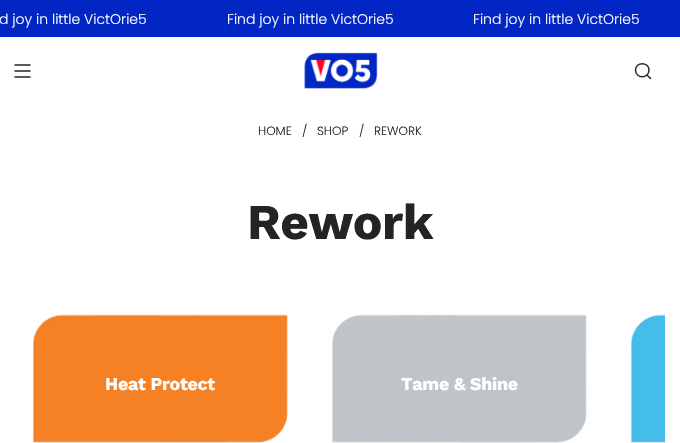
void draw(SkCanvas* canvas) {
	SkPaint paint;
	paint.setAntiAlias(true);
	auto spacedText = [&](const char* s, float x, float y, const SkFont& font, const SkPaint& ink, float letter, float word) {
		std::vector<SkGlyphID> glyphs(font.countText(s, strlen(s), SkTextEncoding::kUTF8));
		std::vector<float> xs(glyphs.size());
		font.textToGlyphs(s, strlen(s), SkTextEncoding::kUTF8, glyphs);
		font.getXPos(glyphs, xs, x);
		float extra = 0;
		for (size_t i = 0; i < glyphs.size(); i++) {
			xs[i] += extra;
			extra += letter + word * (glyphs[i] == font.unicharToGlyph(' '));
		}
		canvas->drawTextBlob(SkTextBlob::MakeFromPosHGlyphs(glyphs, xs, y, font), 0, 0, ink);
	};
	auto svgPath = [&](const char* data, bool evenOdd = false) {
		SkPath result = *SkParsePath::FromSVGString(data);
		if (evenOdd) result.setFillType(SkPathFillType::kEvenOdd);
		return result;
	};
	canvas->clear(0xffffffff);
	paint.setColor(0xff0126c3);
	canvas->drawRect(SkRect::MakeXYWH(0, 0, 680, 37), paint);
	SkFont f1(fontMgr->matchFamilyStyle("Poppins", SkFontStyle(300, SkFontStyle::kNormal_Width, SkFontStyle::kUpright_Slant)), 14);
	f1.setSubpixel(true);
	paint.setColor(0xffffffff);
	canvas->drawString("d joy in little VictOrie5", -1, 24, f1, paint);
	canvas->drawString("Find joy in little VictOrie5", 227, 24, f1, paint);
	canvas->drawString("Find joy in little VictOrie5", 473, 24, f1, paint);
	paint.setStroke(true);
	paint.setStrokeWidth(1.5);
	paint.setStrokeCap(SkPaint::kRound_Cap);
	paint.setStrokeJoin(SkPaint::kRound_Join);
	paint.setColor(0xff242424);
	canvas->drawPath(svgPath("M15 65H30M15 71H30M15 77H30"), paint);
	canvas->drawImageRect(SkImages::DeferredFromEncodedData(SkData::MakeFromFileName("img1.png")), SkRect::MakeXYWH(304, 52, 74, 37), SkSamplingOptions());
	canvas->drawPath(svgPath("M647 75L650.5 78.5M635.5 70C635.5 79 649 79 649 70C649 61.5 635.5 61.5 635.5 70Z"), paint);
	SkFont f2(fontMgr->matchFamilyStyle("Poppins", SkFontStyle(300, SkFontStyle::kNormal_Width, SkFontStyle::kUpright_Slant)), 12);
	f2.setSubpixel(true);
	paint.setStroke(false);
	canvas->drawString("HOME", 258, 135, f2, paint);
	canvas->drawString("/", 302, 135, f2, paint);
	canvas->drawString("SHOP", 317, 135, f2, paint);
	canvas->drawString("/", 359, 135, f2, paint);
	canvas->drawString("REWORK", 374, 135, f2, paint);
	SkFont f3(fontMgr->matchFamilyStyle("Kantumruy Pro", SkFontStyle::Bold()), 50);
	f3.setSubpixel(true);
	spacedText("Rework", 247, 239, f3, paint, -0.5, 0);
	canvas->drawImageRect(SkImages::DeferredFromEncodedData(SkData::MakeFromFileName("img2.png")), SkRect::MakeXYWH(32, 314, 256, 129), SkSamplingOptions());
	SkFont f4(fontMgr->matchFamilyStyle("Kantumruy Pro", SkFontStyle::Bold()), 18);
	f4.setSubpixel(true);
	paint.setColor(0xffffffff);
	spacedText("Heat Protect", 105, 390, f4, paint, -0.25, 0);
	canvas->drawImageRect(SkImages::DeferredFromEncodedData(SkData::MakeFromFileName("img3.png")), SkRect::MakeXYWH(332, 314, 255, 129), SkSamplingOptions());
	spacedText("Tame & Shine", 401, 390, f4, paint, -0.25, 0);
	canvas->drawImageRect(SkImages::DeferredFromEncodedData(SkData::MakeFromFileName("img4.png")), SkRect::MakeXYWH(630, 314, 35, 129), SkSamplingOptions());
}
